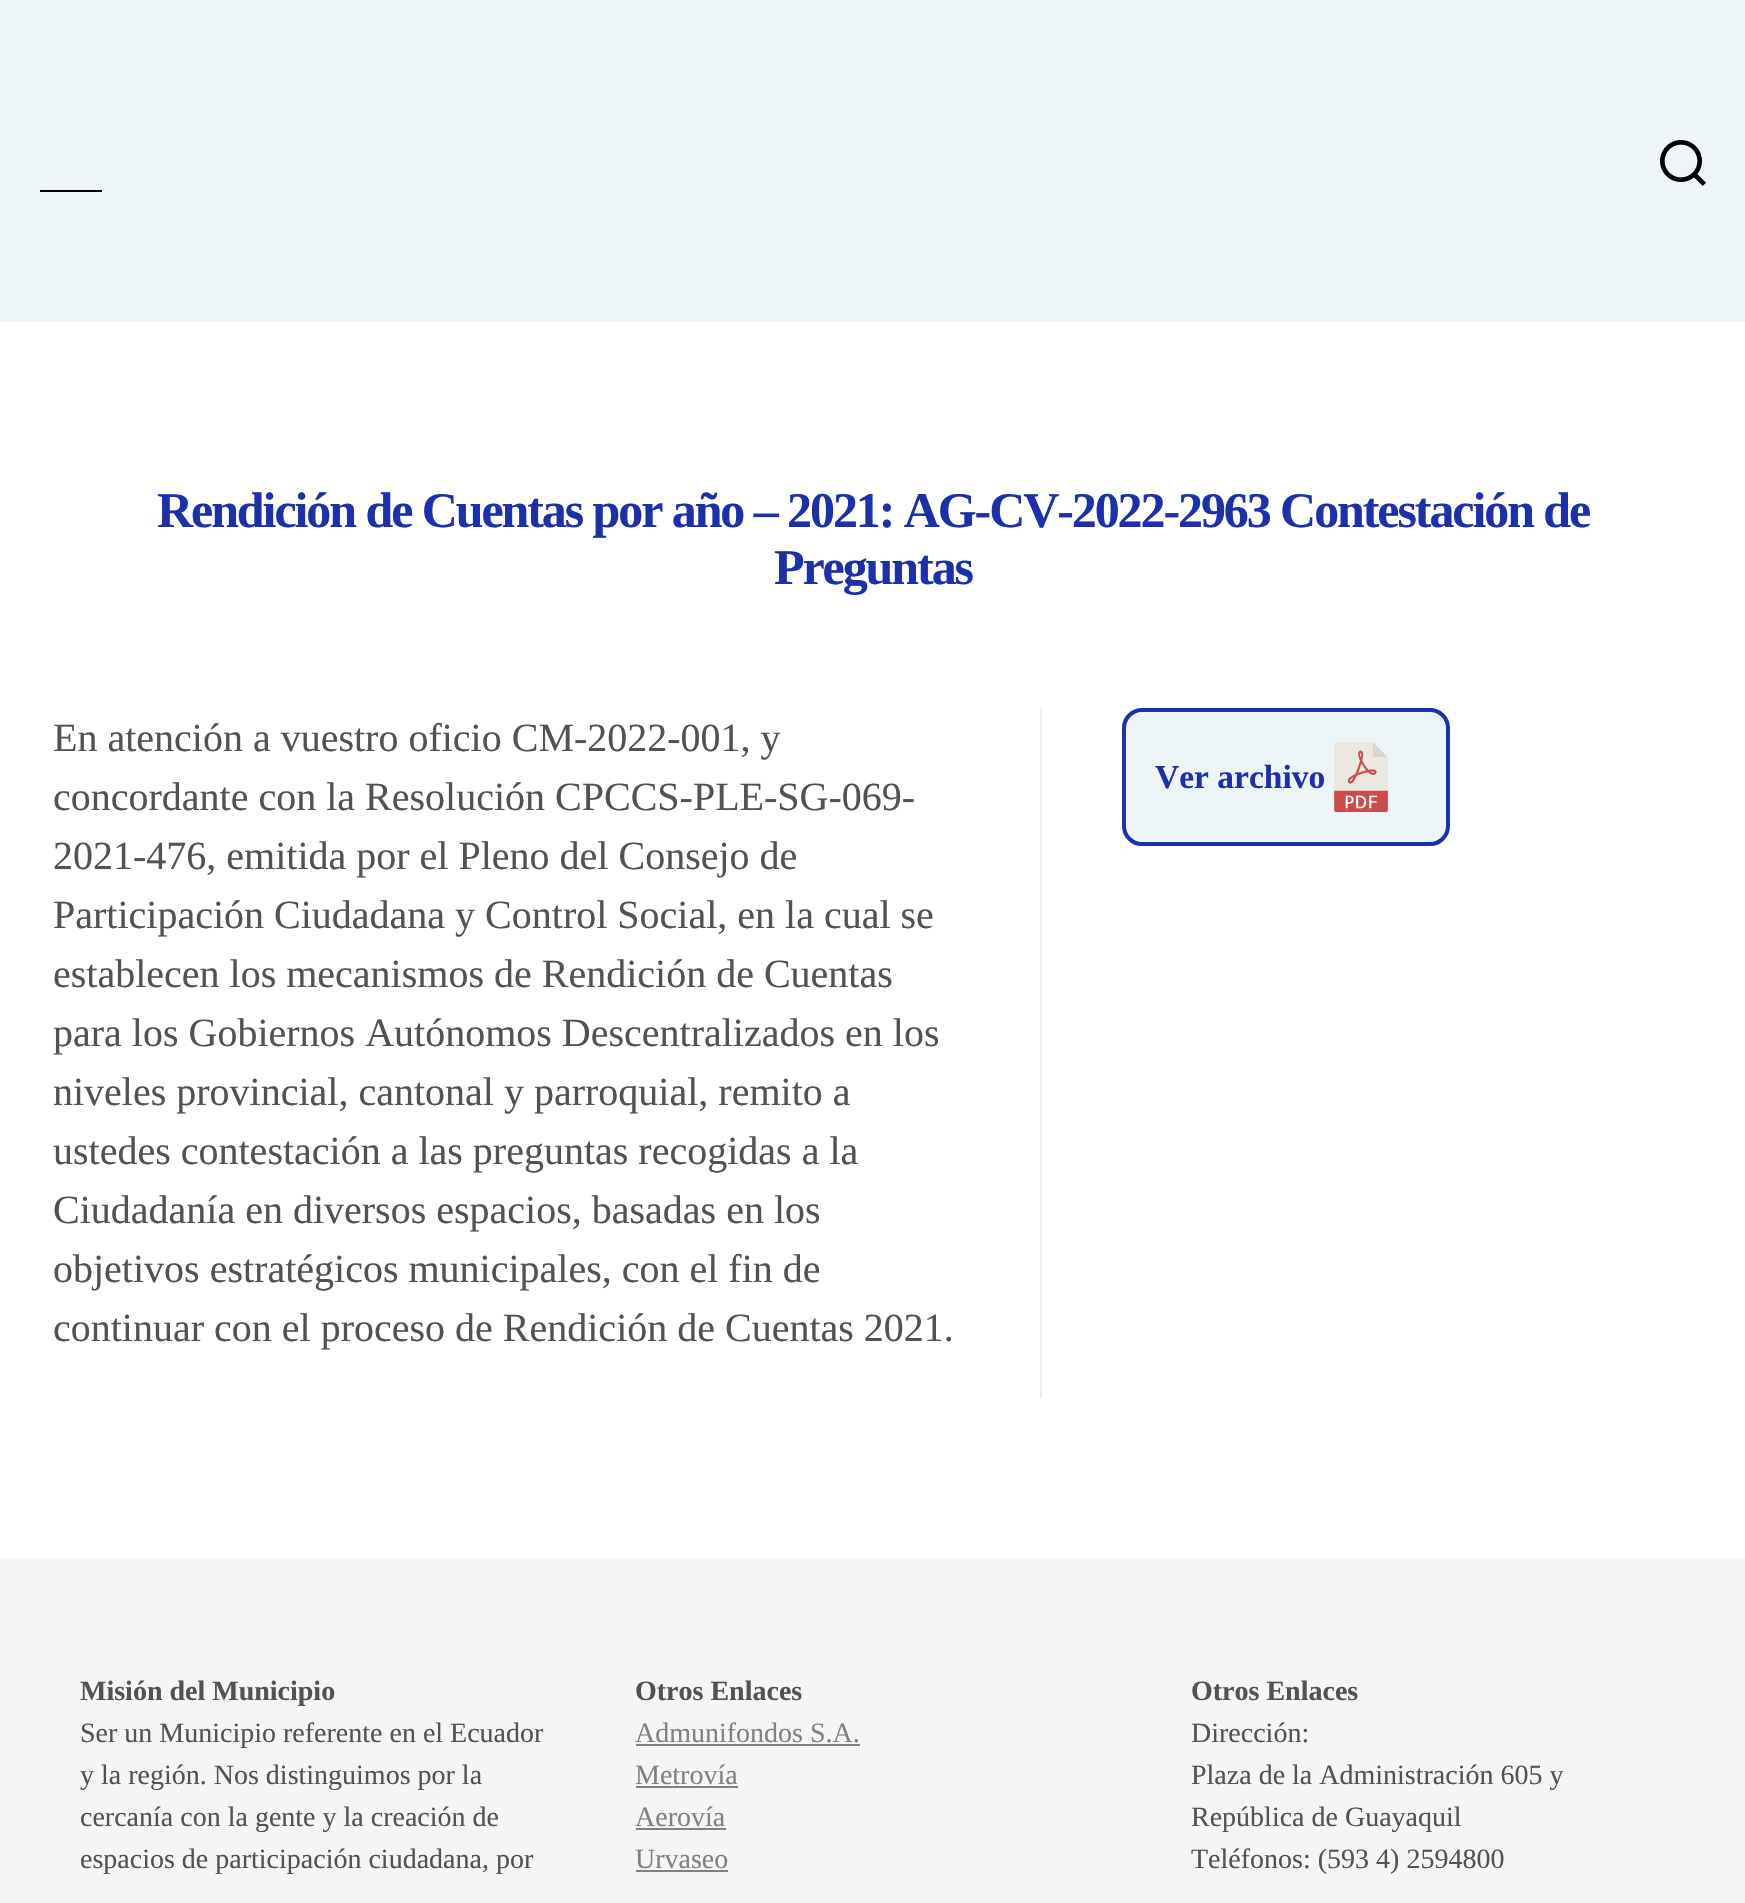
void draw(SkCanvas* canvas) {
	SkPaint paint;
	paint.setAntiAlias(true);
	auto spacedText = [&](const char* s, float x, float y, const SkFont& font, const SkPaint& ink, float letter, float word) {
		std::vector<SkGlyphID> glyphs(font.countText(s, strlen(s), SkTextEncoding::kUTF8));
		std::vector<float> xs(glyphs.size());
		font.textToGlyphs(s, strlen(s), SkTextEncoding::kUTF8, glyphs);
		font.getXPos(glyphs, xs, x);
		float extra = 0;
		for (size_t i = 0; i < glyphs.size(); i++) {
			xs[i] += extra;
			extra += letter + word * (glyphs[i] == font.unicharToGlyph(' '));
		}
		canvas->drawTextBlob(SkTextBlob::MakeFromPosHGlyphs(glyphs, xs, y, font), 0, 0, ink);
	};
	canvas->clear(0xffffffff);
	paint.setColor(0xffeef5f9);
	canvas->drawRect(SkRect::MakeXYWH(0, 0, 1745, 322), paint);
	canvas->drawImageRect(SkImages::DeferredFromEncodedData(SkData::MakeFromFileName("img1.png")), SkRect::MakeXYWH(1660, 140, 46, 46), SkSamplingOptions());
	paint.setColor(0xff000000);
	canvas->drawRect(SkRect::MakeXYWH(40, 190, 62, 2), paint);
	SkFont f1(fontMgr->matchFamilyStyle("Liberation Serif", SkFontStyle::Bold()), 50);
	f1.setSubpixel(true);
	paint.setColor(0xff1d30ab);
	spacedText("Rendición de Cuentas por año – 2021: AG-CV-2022-2963 Contestación de", 157, 527, f1, paint, -2.08, 0);
	spacedText("Preguntas", 774, 584, f1, paint, -2.08, 0);
	SkFont f2(fontMgr->matchFamilyStyle("Liberation Serif", SkFontStyle::Normal()), 40);
	f2.setSubpixel(true);
	paint.setColor(0xff525254);
	canvas->drawString("En atención a vuestro oficio CM-2022-001, y", 53, 751, f2, paint);
	canvas->drawString("concordante con la Resolución CPCCS-PLE-SG-069-", 53, 810, f2, paint);
	canvas->drawString("2021-476, emitida por el Pleno del Consejo de", 53, 869, f2, paint);
	canvas->drawString("Participación Ciudadana y Control Social, en la cual se", 53, 928, f2, paint);
	canvas->drawString("establecen los mecanismos de Rendición de Cuentas", 53, 987, f2, paint);
	canvas->drawString("para los Gobiernos Autónomos Descentralizados en los", 53, 1046, f2, paint);
	canvas->drawString("niveles provincial, cantonal y parroquial, remito a", 53, 1105, f2, paint);
	canvas->drawString("ustedes contestación a las preguntas recogidas a la", 53, 1164, f2, paint);
	canvas->drawString("Ciudadanía en diversos espacios, basadas en los", 53, 1223, f2, paint);
	canvas->drawString("objetivos estratégicos municipales, con el fin de", 53, 1282, f2, paint);
	canvas->drawString("continuar con el proceso de Rendición de Cuentas 2021.", 53, 1341, f2, paint);
	paint.setColor(0xffeeeeee);
	canvas->drawRect(SkRect::MakeXYWH(1040, 708, 2, 690), paint);
	paint.setColor(0xffeef5f9);
	canvas->drawRoundRect(SkRect::MakeXYWH(1124, 710, 324, 134), 18, 18, paint);
	paint.setStroke(true);
	paint.setStrokeWidth(4);
	paint.setColor(0xff1d31ab);
	canvas->drawRoundRect(SkRect::MakeXYWH(1124, 710, 324, 134), 18, 18, paint);
	SkFont f3(fontMgr->matchFamilyStyle("Liberation Serif", SkFontStyle::Bold()), 33.5);
	f3.setSubpixel(true);
	paint.setStroke(false);
	paint.setColor(0xff1d30ab);
	canvas->drawString("Ver archivo", 1155, 788, f3, paint);
	canvas->drawImageRect(SkImages::DeferredFromEncodedData(SkData::MakeFromFileName("img2.png")), SkRect::MakeXYWH(1334, 742, 54, 70), SkSamplingOptions());
	paint.setColor(0xfff5f5f5);
	canvas->drawRect(SkRect::MakeXYWH(0, 1558, 1745, 345), paint);
	SkFont f4(fontMgr->matchFamilyStyle("Liberation Serif", SkFontStyle::Bold()), 28);
	f4.setSubpixel(true);
	paint.setColor(0xff525254);
	canvas->drawString("Misión del Municipio", 80, 1700, f4, paint);
	SkFont f5(fontMgr->matchFamilyStyle("Liberation Serif", SkFontStyle::Normal()), 28);
	f5.setSubpixel(true);
	canvas->drawString("Ser un Municipio referente en el Ecuador", 80, 1742, f5, paint);
	canvas->drawString("y la región. Nos distinguimos por la", 80, 1784, f5, paint);
	canvas->drawString("cercanía con la gente y la creación de", 80, 1826, f5, paint);
	canvas->drawString("espacios de participación ciudadana, por", 80, 1868, f5, paint);
	canvas->drawString("Otros Enlaces", 635, 1700, f4, paint);
	paint.setColor(0xff808080);
	canvas->drawString("Admunifondos S.A.", 635, 1742, f5, paint);
	canvas->drawRect(SkRect::MakeXYWH(636, 1744, 224, 2), paint);
	canvas->drawString("Metrovía", 635, 1784, f5, paint);
	canvas->drawRect(SkRect::MakeXYWH(636, 1786, 102, 2), paint);
	canvas->drawString("Aerovía", 635, 1826, f5, paint);
	canvas->drawRect(SkRect::MakeXYWH(636, 1828, 90, 2), paint);
	canvas->drawString("Urvaseo", 635, 1868, f5, paint);
	canvas->drawRect(SkRect::MakeXYWH(636, 1870, 92, 2), paint);
	paint.setColor(0xff525254);
	canvas->drawString("Otros Enlaces", 1191, 1700, f4, paint);
	canvas->drawString("Dirección:", 1191, 1742, f5, paint);
	canvas->drawString("Plaza de la Administración 605 y", 1191, 1784, f5, paint);
	canvas->drawString("República de Guayaquil", 1191, 1826, f5, paint);
	canvas->drawString("Teléfonos: (593 4) 2594800", 1191, 1868, f5, paint);
}
